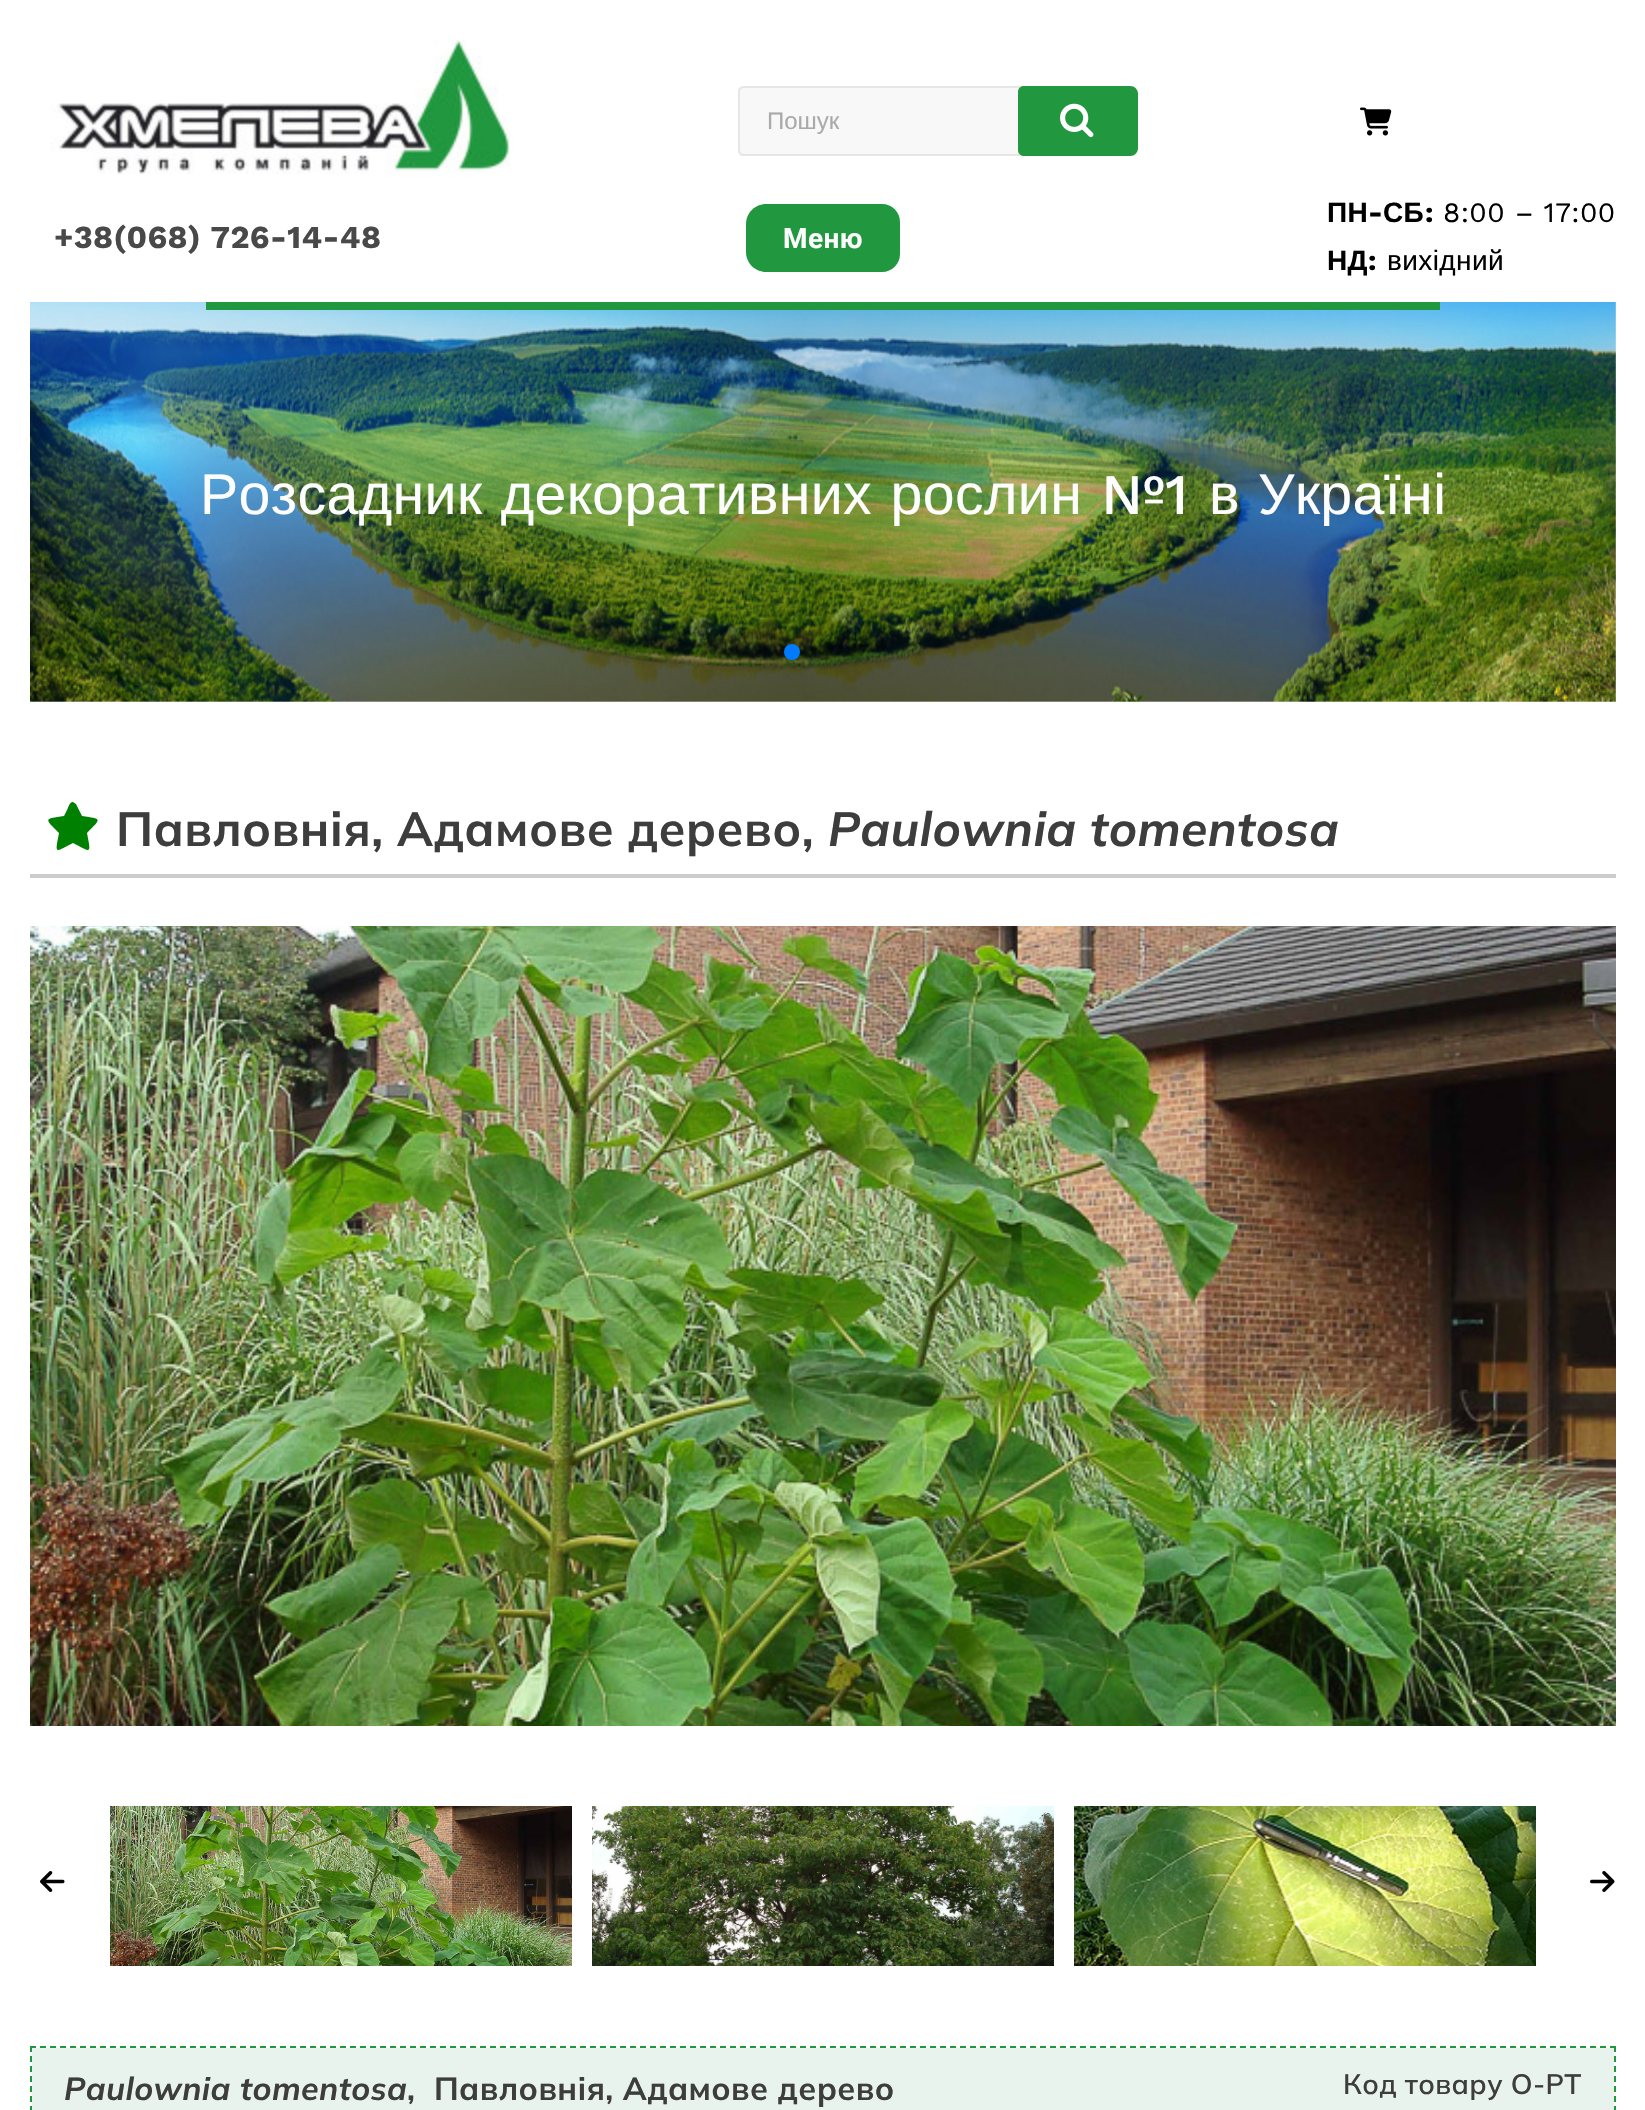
void draw(SkCanvas* canvas) {
	SkPaint paint;
	paint.setAntiAlias(true);
	auto spacedText = [&](const char* s, float x, float y, const SkFont& font, const SkPaint& ink, float letter, float word) {
		std::vector<SkGlyphID> glyphs(font.countText(s, strlen(s), SkTextEncoding::kUTF8));
		std::vector<float> xs(glyphs.size());
		font.textToGlyphs(s, strlen(s), SkTextEncoding::kUTF8, glyphs);
		font.getXPos(glyphs, xs, x);
		float extra = 0;
		for (size_t i = 0; i < glyphs.size(); i++) {
			xs[i] += extra;
			extra += letter + word * (glyphs[i] == font.unicharToGlyph(' '));
		}
		canvas->drawTextBlob(SkTextBlob::MakeFromPosHGlyphs(glyphs, xs, y, font), 0, 0, ink);
	};
	auto svgPath = [&](const char* data, bool evenOdd = false) {
		SkPath result = *SkParsePath::FromSVGString(data);
		if (evenOdd) result.setFillType(SkPathFillType::kEvenOdd);
		return result;
	};
	canvas->clear(0xffffffff);
	canvas->drawImageRect(SkImages::DeferredFromEncodedData(SkData::MakeFromFileName("img1.png")), SkRect::MakeXYWH(50, 40, 460, 134), SkSamplingOptions());
	paint.setColor(0xfff8f8f8);
	canvas->drawPath(svgPath("M744 87H1130C1134 87 1137 90 1137 94V148C1137 152 1134 155 1130 155H744C741 155 739 153 739 150V92C739 89 741 87 744 87Z"), paint);
	paint.setStroke(true);
	paint.setStrokeWidth(2);
	paint.setColor(0xffe6e6e6);
	canvas->drawPath(svgPath("M744 87H1130C1134 87 1137 90 1137 94V148C1137 152 1134 155 1130 155H744C741 155 739 153 739 150V92C739 89 741 87 744 87Z"), paint);
	SkFont f1(fontMgr->matchFamilyStyle("Liberation Sans", SkFontStyle::Normal()), 24);
	f1.setSubpixel(true);
	paint.setStroke(false);
	paint.setColor(0xffaaaaaa);
	canvas->drawString("Пошук", 767, 129, f1, paint);
	paint.setColor(0xff21973f);
	canvas->drawPath(svgPath("M1024 86H1130C1134.5 86 1138 89.5 1138 94V148C1138 152.5 1134.5 156 1130 156H1024C1020.5 156 1018 153.5 1018 150V92C1018 88.5 1020.5 86 1024 86Z"), paint);
	canvas->drawImageRect(SkImages::DeferredFromEncodedData(SkData::MakeFromFileName("img2.png")), SkRect::MakeXYWH(1060, 103, 34, 35), SkSamplingOptions());
	canvas->drawImageRect(SkImages::DeferredFromEncodedData(SkData::MakeFromFileName("img3.png")), SkRect::MakeXYWH(1360, 107, 32, 29), SkSamplingOptions());
	SkFont f2(fontMgr->matchFamilyStyle("Work Sans", SkFontStyle::Bold()), 32);
	f2.setSubpixel(true);
	paint.setColor(0xff494949);
	spacedText("+38(068) 726-14-48", 54, 248, f2, paint, 0.4, 0);
	SkFont f3(fontMgr->matchFamilyStyle("Liberation Sans", SkFontStyle::Bold()), 28);
	f3.setSubpixel(true);
	paint.setColor(0xff000000);
	spacedText("ПН", 1327, 222, f3, paint, 0.4, 0);
	SkFont f4(fontMgr->matchFamilyStyle("Work Sans", SkFontStyle::Bold()), 28);
	f4.setSubpixel(true);
	spacedText("-", 1368, 222, f4, paint, 0.4, 0);
	spacedText("СБ", 1383, 222, f3, paint, 0.4, 0);
	spacedText(":", 1425, 222, f4, paint, 0.4, 0);
	SkFont f5(fontMgr->matchFamilyStyle("Work Sans", SkFontStyle::Normal()), 28);
	f5.setSubpixel(true);
	spacedText("8:00 – 17:00", 1443, 222, f5, paint, 0.4, 0);
	spacedText("НД", 1327, 270, f3, paint, 0.4, 0);
	spacedText(":", 1368, 270, f4, paint, 0.4, 0);
	SkFont f6(fontMgr->matchFamilyStyle("Liberation Sans", SkFontStyle::Normal()), 28);
	f6.setSubpixel(true);
	spacedText("вихідний", 1387, 270, f6, paint, 0.4, 0);
	paint.setColor(0xff21973f);
	canvas->drawPath(svgPath("M766 204H882C892 204 900 212 900 222V254C900 264 892 272 882 272H766C755 272 746 263 746 252V224C746 213 755 204 766 204Z"), paint);
	SkFont f7(fontMgr->matchFamilyStyle("Roboto", SkFontStyle::Bold()), 28);
	f7.setSubpixel(true);
	paint.setColor(0xfffefdfd);
	spacedText("Меню", 783, 248, f7, paint, 0.4, 0);
	canvas->drawImageRect(SkImages::DeferredFromEncodedData(SkData::MakeFromFileName("img4.png")), SkRect::MakeXYWH(30, 302, 1586, 400), SkSamplingOptions());
	paint.setColor(0xff21973f);
	canvas->drawRect(SkRect::MakeXYWH(206, 302, 1234, 8), paint);
	SkFont f8(fontMgr->matchFamilyStyle("Liberation Sans", SkFontStyle::Normal()), 57.25);
	f8.setSubpixel(true);
	paint.setColor(0xfffefdfd);
	spacedText("Розсадник декоративних рослин", 200, 514, f8, paint, 0.4, 2);
	SkFont f9(fontMgr->matchFamilyStyle("Work Sans", SkFontStyle(500, SkFontStyle::kNormal_Width, SkFontStyle::kUpright_Slant)), 57.25);
	f9.setSubpixel(true);
	spacedText("№1", 1101, 514, f9, paint, 0.4, 0);
	spacedText("в Україні", 1209, 514, f8, paint, 0.4, 2);
	paint.setColor(0xff007aff);
	canvas->drawCircle(792, 652, 8, paint);
	paint.setColor(0x33000000);
	canvas->drawCircle(824, 652, 8, paint);
	canvas->drawCircle(856, 652, 8, paint);
	paint.setColor(0xffcdcdcd);
	canvas->drawRect(SkRect::MakeXYWH(30, 874, 1586, 4), paint);
	paint.setColor(0xff008000);
	canvas->drawPath(svgPath("M76 804L73 802C70 801 68 808 67 810L64 816C44 819 44 818 59 833C55 854 54 853 73 843C92 853 91 854 87 833C102 818 102 819 82 816Z"), paint);
	SkFont f10(fontMgr->matchFamilyStyle("Mulish", SkFontStyle::Bold()), 48);
	f10.setSubpixel(true);
	paint.setColor(0xff3d3d3d);
	spacedText("Павловнія, Адамове дерево,", 116, 846, f10, paint, 0.4, 0);
	SkFont f11(fontMgr->matchFamilyStyle("Mulish", SkFontStyle::BoldItalic()), 48);
	f11.setSubpixel(true);
	spacedText("Paulownia tomentosa", 828, 846, f11, paint, 0.4, 0);
	canvas->drawImageRect(SkImages::DeferredFromEncodedData(SkData::MakeFromFileName("img5.png")), SkRect::MakeXYWH(30, 926, 1586, 800), SkSamplingOptions());
	canvas->drawImageRect(SkImages::DeferredFromEncodedData(SkData::MakeFromFileName("img6.png")), SkRect::MakeXYWH(110, 1806, 462, 160), SkSamplingOptions());
	canvas->drawImageRect(SkImages::DeferredFromEncodedData(SkData::MakeFromFileName("img7.png")), SkRect::MakeXYWH(592, 1806, 462, 160), SkSamplingOptions());
	canvas->drawImageRect(SkImages::DeferredFromEncodedData(SkData::MakeFromFileName("img8.png")), SkRect::MakeXYWH(1074, 1806, 462, 160), SkSamplingOptions());
	canvas->drawImageRect(SkImages::DeferredFromEncodedData(SkData::MakeFromFileName("img9.png")), SkRect::MakeXYWH(40, 1871, 25, 21), SkSamplingOptions());
	canvas->drawImageRect(SkImages::DeferredFromEncodedData(SkData::MakeFromFileName("img10.png")), SkRect::MakeXYWH(1590, 1871, 25, 21), SkSamplingOptions());
	paint.setStroke(true);
	paint.setColor(0xff21973f);
	paint.setPathEffect(SkDashPathEffect::Make({{6, 4}}, 0));
	canvas->drawPath(svgPath("M30 2047H1616"), paint);
	paint.setPathEffect(nullptr);
	paint.setPathEffect(SkDashPathEffect::Make({{6, 4}}, 0));
	canvas->drawPath(svgPath("M1615 2046V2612"), paint);
	paint.setPathEffect(nullptr);
	paint.setPathEffect(SkDashPathEffect::Make({{6, 4}}, 0));
	canvas->drawPath(svgPath("M31 2046V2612"), paint);
	paint.setPathEffect(nullptr);
	paint.setStroke(false);
	paint.setColor(0xffe9f3ed);
	canvas->drawRect(SkRect::MakeXYWH(32, 2048, 1582, 62), paint);
	SkFont f12(fontMgr->matchFamilyStyle("Mulish", SkFontStyle::BoldItalic()), 32);
	f12.setSubpixel(true);
	paint.setColor(0xff3d3d3d);
	spacedText("Paulownia tomentosa", 64, 2100, f12, paint, 0.4, 0);
	SkFont f13(fontMgr->matchFamilyStyle("Mulish", SkFontStyle::Bold()), 32);
	f13.setSubpixel(true);
	spacedText(",", 407, 2100, f13, paint, 0.4, 0);
	spacedText("Павловнія, Адамове дерево", 434, 2100, f13, paint, 0.4, 0);
	SkFont f14(fontMgr->matchFamilyStyle("Mulish", SkFontStyle(600, SkFontStyle::kNormal_Width, SkFontStyle::kUpright_Slant)), 28);
	f14.setSubpixel(true);
	spacedText("Код товару О-PT", 1343, 2094, f14, paint, 0.4, 0);
}
